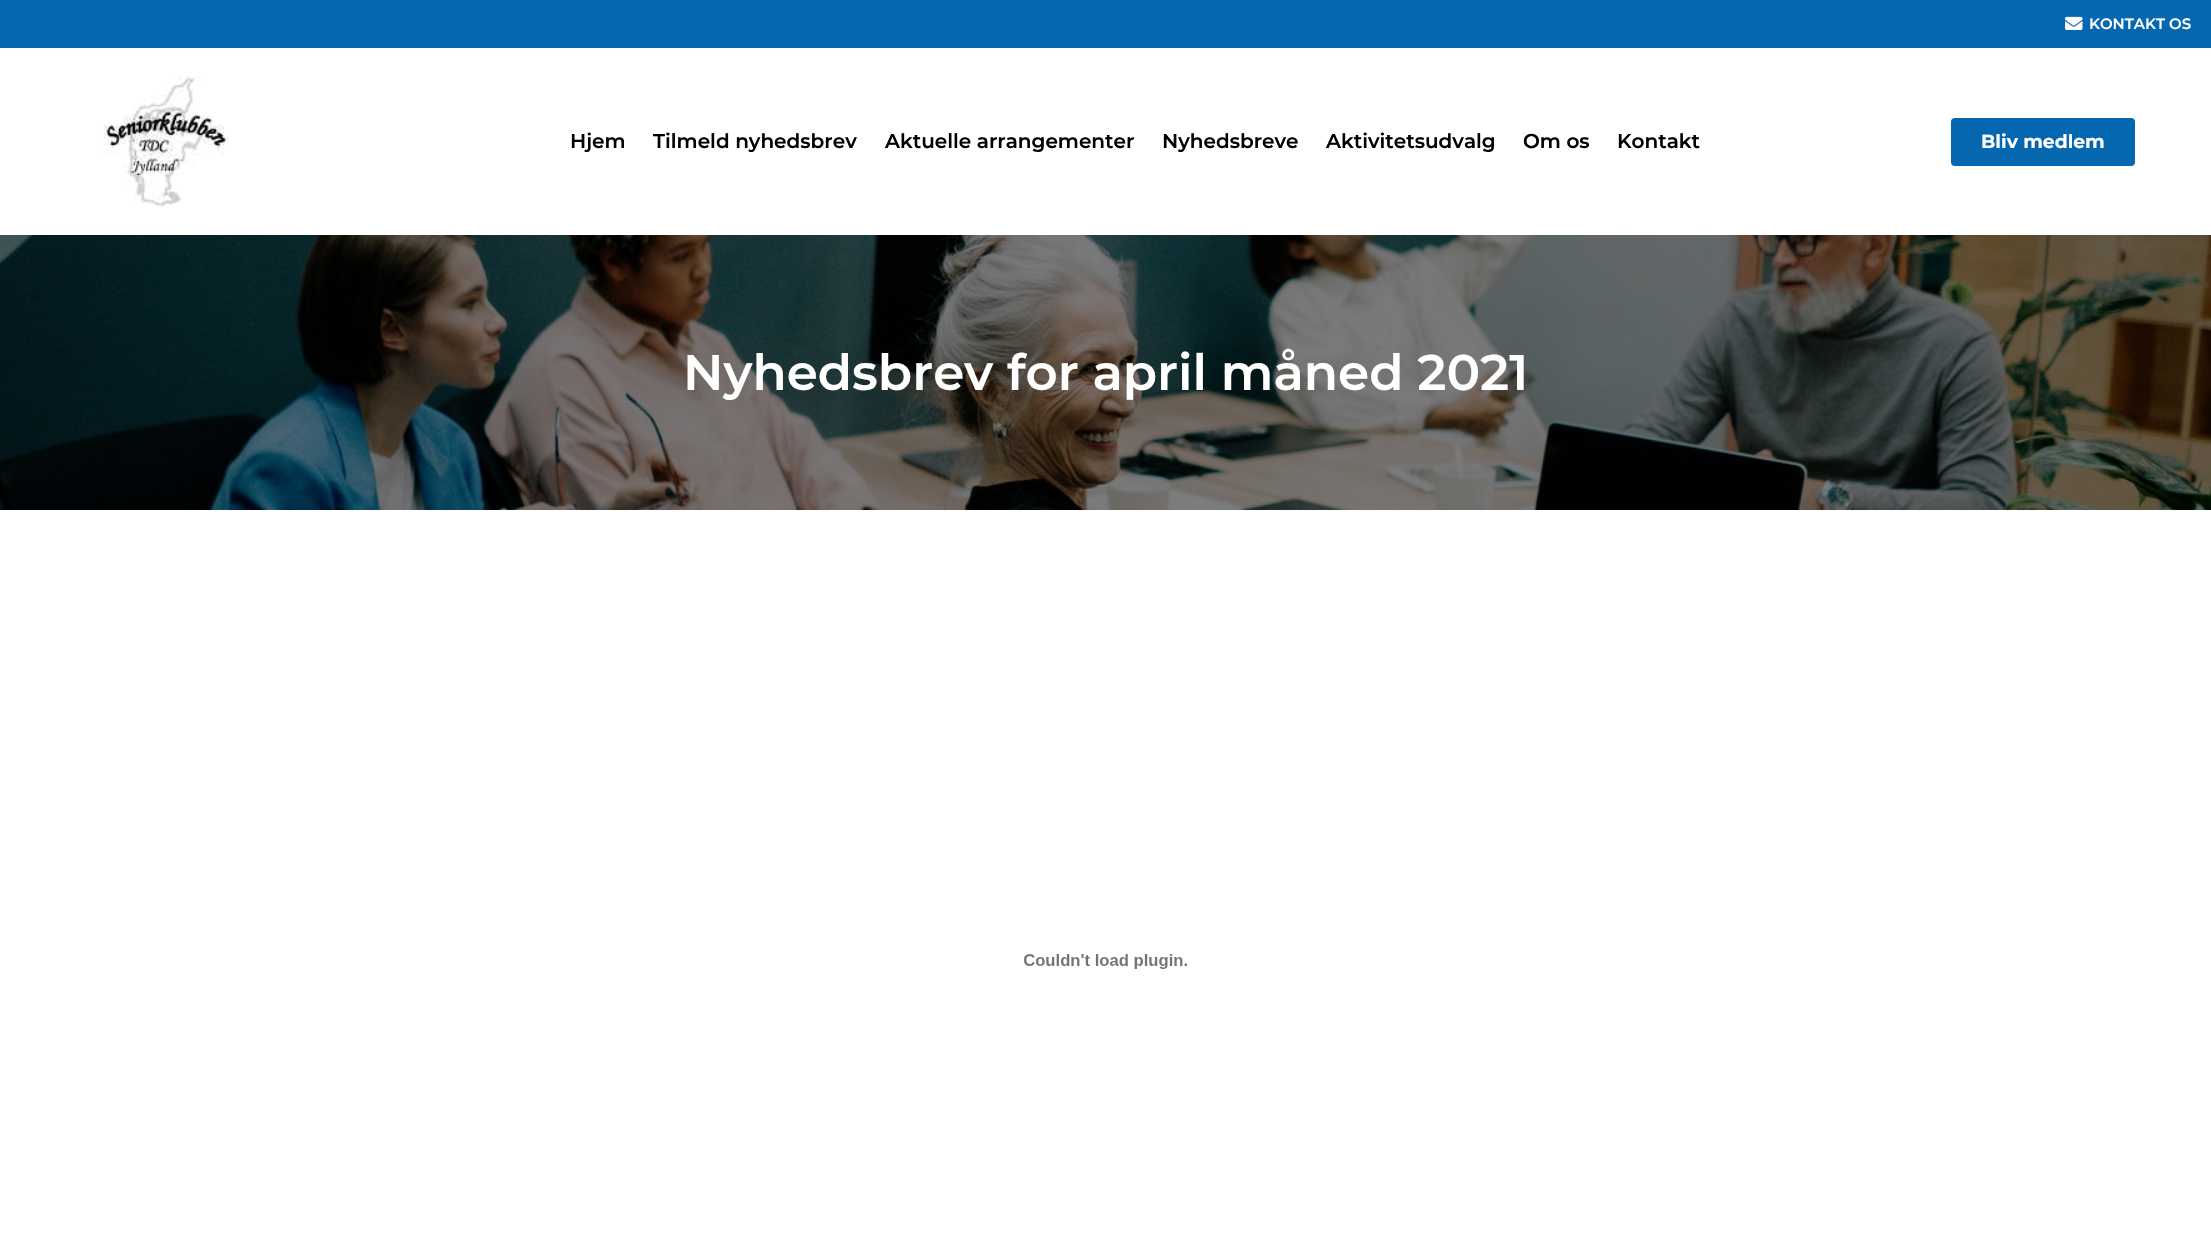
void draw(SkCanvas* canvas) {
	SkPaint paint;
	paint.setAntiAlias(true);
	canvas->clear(0xffffffff);
	paint.setColor(0xff0467b0);
	canvas->drawRect(SkRect::MakeXYWH(0, 0, 2211, 48), paint);
	canvas->drawImageRect(SkImages::DeferredFromEncodedData(SkData::MakeFromFileName("img1.png")), SkRect::MakeXYWH(2065, 16, 18, 14), SkSamplingOptions());
	SkFont f1(fontMgr->matchFamilyStyle("Montserrat", SkFontStyle(600, SkFontStyle::kNormal_Width, SkFontStyle::kUpright_Slant)), 15);
	f1.setSubpixel(true);
	paint.setColor(0xffffffff);
	canvas->drawString("KONTAKT OS", 2089, 29, f1, paint);
	canvas->drawImageRect(SkImages::DeferredFromEncodedData(SkData::MakeFromFileName("img2.png")), SkRect::MakeXYWH(103, 75, 126, 133), SkSamplingOptions());
	SkFont f2(fontMgr->matchFamilyStyle("Montserrat", SkFontStyle(600, SkFontStyle::kNormal_Width, SkFontStyle::kUpright_Slant)), 20);
	f2.setSubpixel(true);
	paint.setColor(0xff000000);
	canvas->drawString("Hjem", 570, 148, f2, paint);
	canvas->drawString("Tilmeld nyhedsbrev", 653, 148, f2, paint);
	canvas->drawString("Aktuelle arrangementer", 885, 148, f2, paint);
	canvas->drawString("Nyhedsbreve", 1162, 148, f2, paint);
	canvas->drawString("Aktivitetsudvalg", 1326, 148, f2, paint);
	canvas->drawString("Om os", 1523, 148, f2, paint);
	canvas->drawString("Kontakt", 1617, 148, f2, paint);
	paint.setColor(0xff0467b0);
	canvas->drawRoundRect(SkRect::MakeXYWH(1951, 118, 184, 48), 4, 4, paint);
	SkFont f3(fontMgr->matchFamilyStyle("Montserrat", SkFontStyle::Bold()), 18.75);
	f3.setSubpixel(true);
	paint.setColor(0xffffffff);
	canvas->drawString("Bliv medlem", 1981, 148, f3, paint);
	canvas->drawImageRect(SkImages::DeferredFromEncodedData(SkData::MakeFromFileName("img3.png")), SkRect::MakeXYWH(0, 235, 2211, 275), SkSamplingOptions());
	SkFont f4(fontMgr->matchFamilyStyle("Montserrat", SkFontStyle(600, SkFontStyle::kNormal_Width, SkFontStyle::kUpright_Slant)), 50);
	f4.setSubpixel(true);
	canvas->drawString("Nyhedsbrev for april måned 2021", 683, 390, f4, paint);
	canvas->drawImageRect(SkImages::DeferredFromEncodedData(SkData::MakeFromFileName("img4.png")), SkRect::MakeXYWH(1024, 954, 163, 15), SkSamplingOptions());
}
